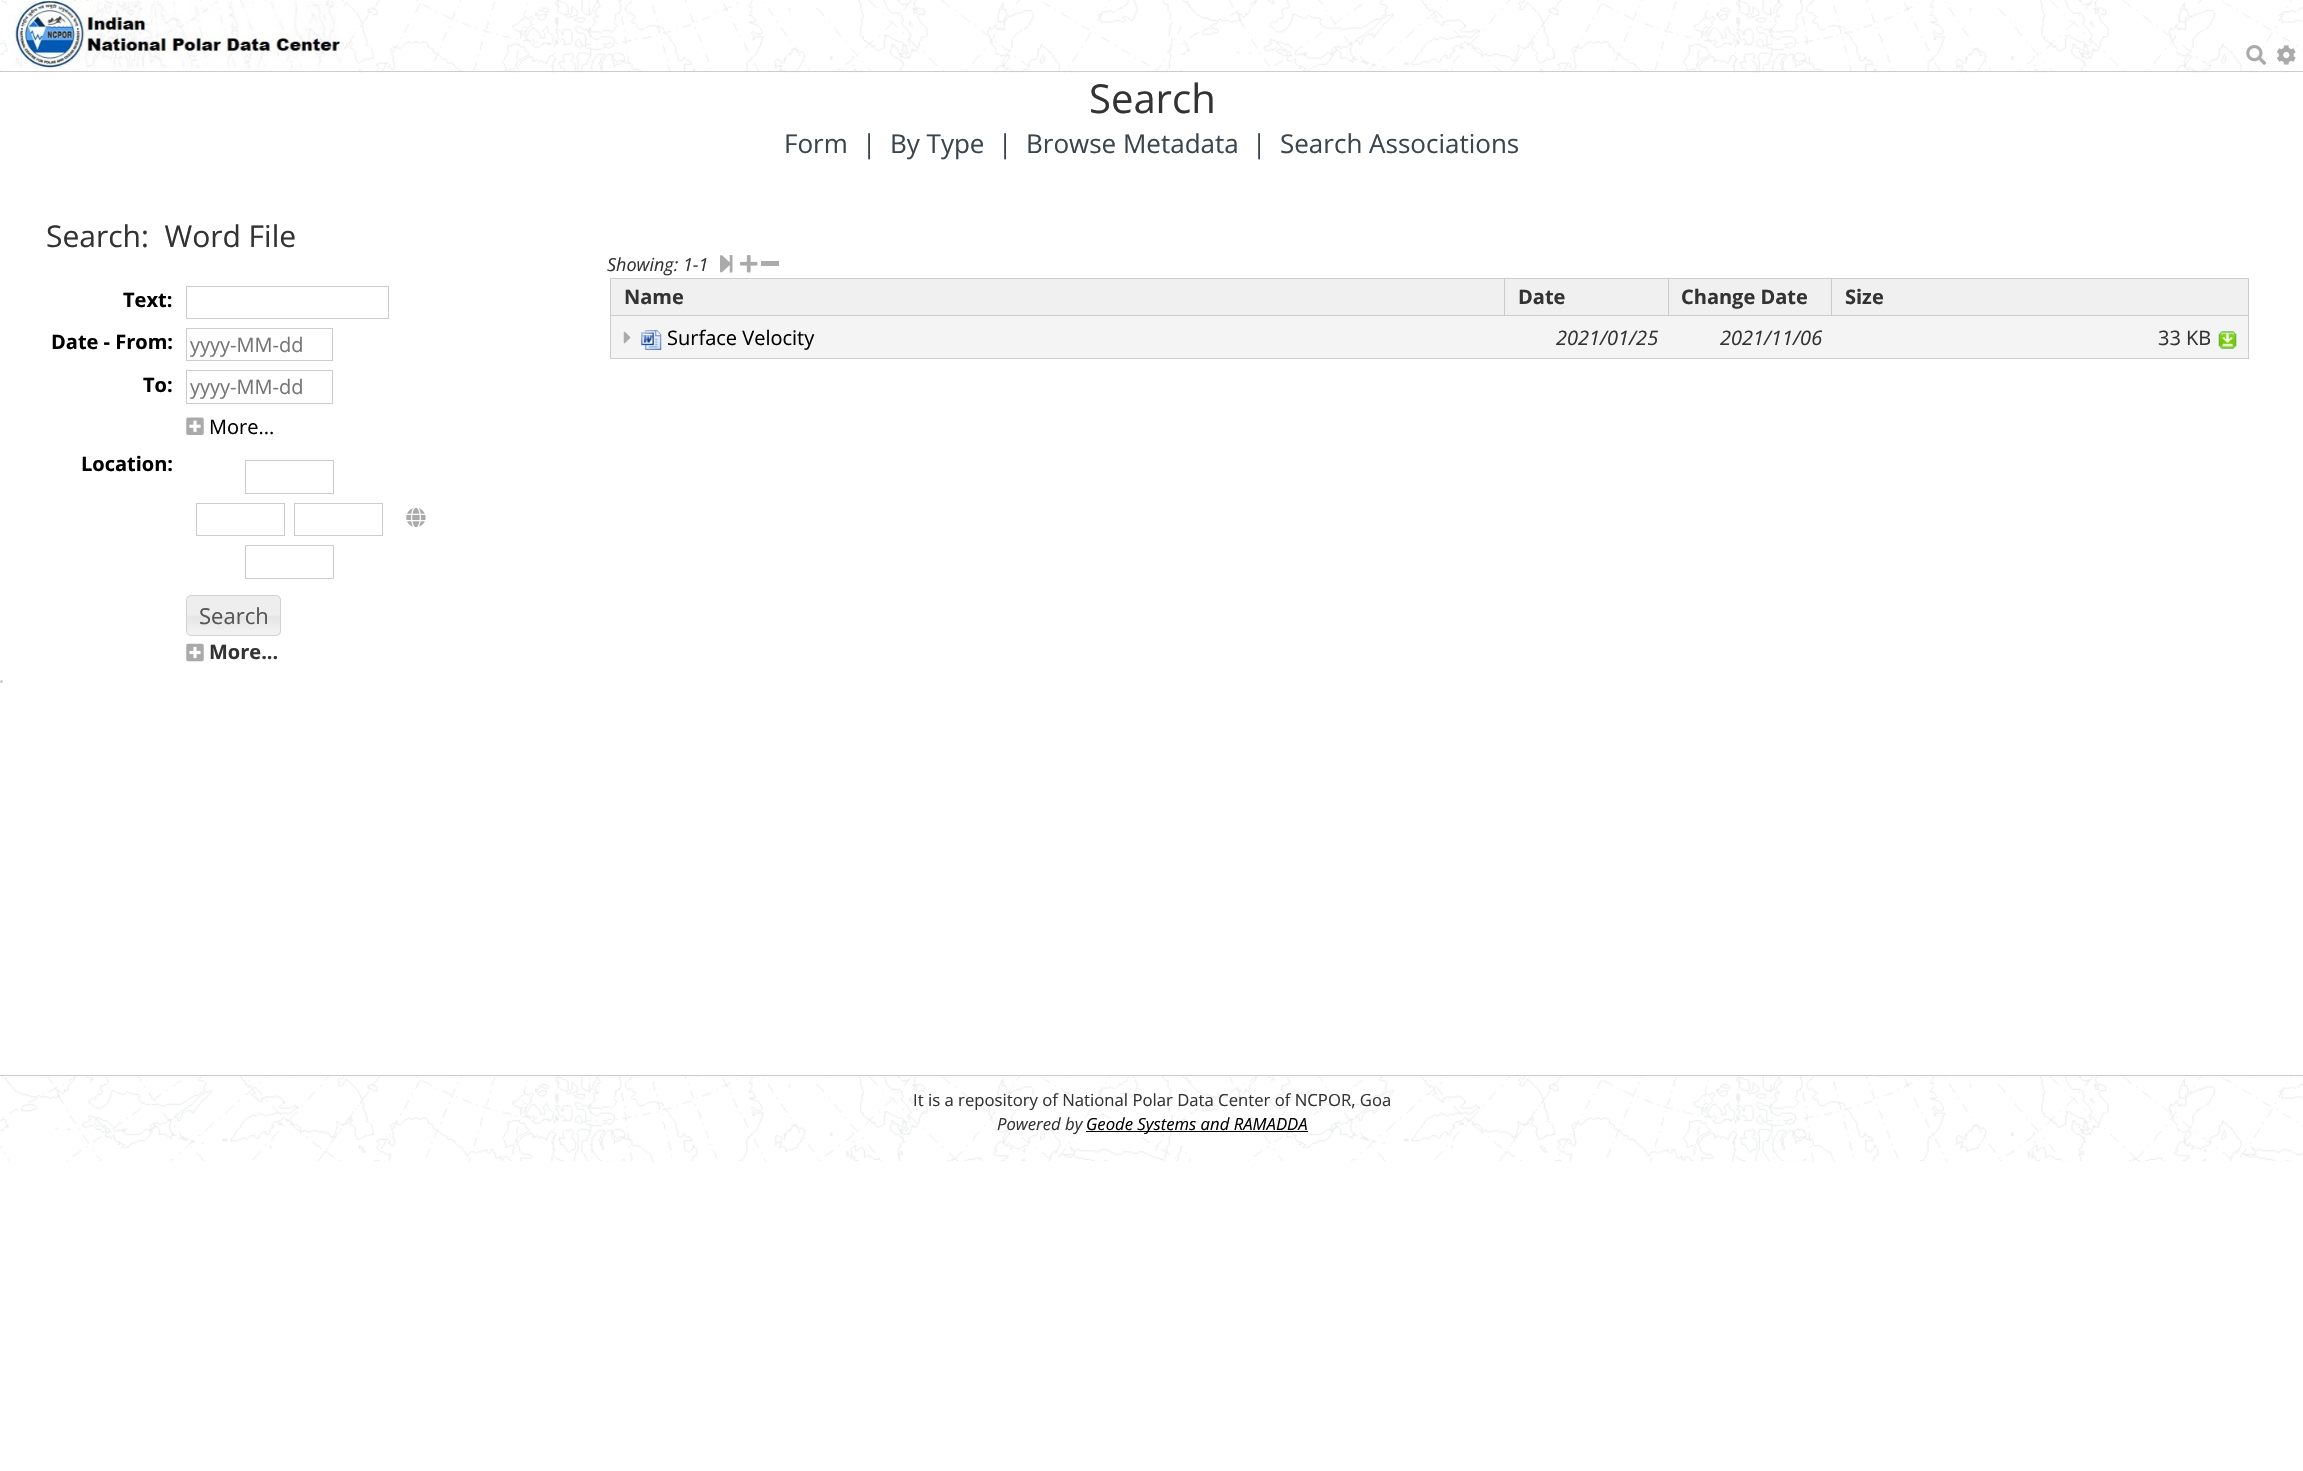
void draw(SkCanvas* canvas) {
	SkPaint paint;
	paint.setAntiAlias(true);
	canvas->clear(0xffffffff);
	canvas->drawImageRect(SkImages::DeferredFromEncodedData(SkData::MakeFromFileName("img1.png")), SkRect::MakeXYWH(0, 0, 2303, 73), SkSamplingOptions());
	paint.setColor(0xffcccccc);
	canvas->drawRect(SkRect::MakeXYWH(0, 71, 2303, 1), paint);
	canvas->drawImageRect(SkImages::DeferredFromEncodedData(SkData::MakeFromFileName("img2.png")), SkRect::MakeXYWH(7, 1, 337, 69), SkSamplingOptions());
	canvas->drawImageRect(SkImages::DeferredFromEncodedData(SkData::MakeFromFileName("img3.png")), SkRect::MakeXYWH(2246, 45, 21, 20), SkSamplingOptions());
	canvas->drawImageRect(SkImages::DeferredFromEncodedData(SkData::MakeFromFileName("img4.png")), SkRect::MakeXYWH(2277, 45, 19, 20), SkSamplingOptions());
	SkFont f1(fontMgr->matchFamilyStyle("Open Sans", SkFontStyle::Normal()), 40);
	f1.setSubpixel(true);
	paint.setColor(0xff333333);
	canvas->drawString("Search", 1089, 113, f1, paint);
	SkFont f2(fontMgr->matchFamilyStyle("Open Sans", SkFontStyle::Normal()), 26);
	f2.setSubpixel(true);
	paint.setColor(0xff3b454e);
	canvas->drawString("Form", 784, 153, f2, paint);
	canvas->drawString("|", 862, 153, f2, paint);
	canvas->drawString("By Type", 890, 153, f2, paint);
	canvas->drawString("|", 998, 153, f2, paint);
	canvas->drawString("Browse Metadata", 1026, 153, f2, paint);
	canvas->drawString("|", 1252, 153, f2, paint);
	canvas->drawString("Search Associations", 1280, 153, f2, paint);
	SkFont f3(fontMgr->matchFamilyStyle("Open Sans", SkFontStyle::Normal()), 30);
	f3.setSubpixel(true);
	paint.setColor(0xff333333);
	canvas->drawString("Search:  Word File", 46, 247, f3, paint);
	SkFont f4(fontMgr->matchFamilyStyle("Open Sans", SkFontStyle::Bold()), 20);
	f4.setSubpixel(true);
	paint.setColor(0xff000000);
	canvas->drawString("Text:", 123, 307, f4, paint);
	paint.setStroke(true);
	paint.setStrokeWidth(1);
	paint.setColor(0xffcccccc);
	canvas->drawRect(SkRect::MakeXYWH(186.5, 286.5, 202, 32), paint);
	paint.setStroke(false);
	paint.setColor(0xff000000);
	canvas->drawString("Date - From:", 51, 349, f4, paint);
	paint.setStroke(true);
	paint.setColor(0xffcccccc);
	canvas->drawRect(SkRect::MakeXYWH(186.5, 328.5, 146, 32), paint);
	SkFont f5(fontMgr->matchFamilyStyle("Open Sans", SkFontStyle::Normal()), 20);
	f5.setSubpixel(true);
	paint.setStroke(false);
	paint.setColor(0xff757575);
	canvas->drawString("yyyy-MM-dd", 190, 352, f5, paint);
	paint.setColor(0xff000000);
	canvas->drawString("To:", 143, 392, f4, paint);
	paint.setStroke(true);
	paint.setColor(0xffcccccc);
	canvas->drawRect(SkRect::MakeXYWH(186.5, 370.5, 146, 33), paint);
	paint.setStroke(false);
	paint.setColor(0xff757575);
	canvas->drawString("yyyy-MM-dd", 190, 394, f5, paint);
	canvas->drawImageRect(SkImages::DeferredFromEncodedData(SkData::MakeFromFileName("img5.png")), SkRect::MakeXYWH(186, 417, 18, 18), SkSamplingOptions());
	paint.setColor(0xff000000);
	canvas->drawString("More...", 209, 434, f5, paint);
	canvas->drawString("Location:", 81, 471, f4, paint);
	paint.setStroke(true);
	paint.setColor(0xffcccccc);
	canvas->drawRect(SkRect::MakeXYWH(245.5, 460.5, 88, 33), paint);
	canvas->drawRect(SkRect::MakeXYWH(196.5, 503.5, 88, 32), paint);
	canvas->drawRect(SkRect::MakeXYWH(294.5, 503.5, 88, 32), paint);
	canvas->drawRect(SkRect::MakeXYWH(245.5, 545.5, 88, 33), paint);
	canvas->drawImageRect(SkImages::DeferredFromEncodedData(SkData::MakeFromFileName("img6.png")), SkRect::MakeXYWH(406, 507, 20, 21), SkSamplingOptions());
	canvas->drawImageRect(SkImages::DeferredFromEncodedData(SkData::MakeFromFileName("img7.png")), SkRect::MakeXYWH(186, 595, 95, 41), SkSamplingOptions());
	paint.setColor(0xffd3d3d3);
	canvas->drawRoundRect(SkRect::MakeXYWH(186.5, 595.5, 94, 40), 4.5, 4.5, paint);
	SkFont f6(fontMgr->matchFamilyStyle("Open Sans", SkFontStyle::Normal()), 22);
	f6.setSubpixel(true);
	paint.setStroke(false);
	paint.setColor(0xff555555);
	canvas->drawString("Search", 199, 624, f6, paint);
	canvas->drawImageRect(SkImages::DeferredFromEncodedData(SkData::MakeFromFileName("img8.png")), SkRect::MakeXYWH(186, 643, 18, 19), SkSamplingOptions());
	paint.setColor(0xff333333);
	canvas->drawString("More...", 209, 659, f4, paint);
	SkFont f7(fontMgr->matchFamilyStyle("Open Sans", SkFontStyle::Italic()), 18);
	f7.setSubpixel(true);
	canvas->drawString("Showing: 1-1", 607, 271, f7, paint);
	canvas->drawImageRect(SkImages::DeferredFromEncodedData(SkData::MakeFromFileName("img9.png")), SkRect::MakeXYWH(720, 255, 13, 18), SkSamplingOptions());
	canvas->drawImageRect(SkImages::DeferredFromEncodedData(SkData::MakeFromFileName("img10.png")), SkRect::MakeXYWH(740, 255, 18, 18), SkSamplingOptions());
	paint.setColor(0xffaaaaaa);
	canvas->drawRect(SkRect::MakeXYWH(761, 261, 18, 5), paint);
	paint.setColor(0xffcccccc);
	canvas->drawRect(SkRect::MakeXYWH(610, 278, 1639, 1), paint);
	canvas->drawRect(SkRect::MakeXYWH(2248, 278, 1, 81), paint);
	canvas->drawRect(SkRect::MakeXYWH(610, 358, 1639, 1), paint);
	canvas->drawRect(SkRect::MakeXYWH(610, 278, 1, 81), paint);
	paint.setColor(0xfff0f0f0);
	canvas->drawRect(SkRect::MakeXYWH(611, 279, 893, 36), paint);
	canvas->drawRect(SkRect::MakeXYWH(1669, 279, 579, 36), paint);
	paint.setColor(0xffcccccc);
	canvas->drawRect(SkRect::MakeXYWH(1831, 315, 418, 1), paint);
	canvas->drawRect(SkRect::MakeXYWH(1831, 278, 1, 38), paint);
	canvas->drawRect(SkRect::MakeXYWH(1668, 315, 165, 1), paint);
	canvas->drawRect(SkRect::MakeXYWH(1668, 278, 1, 38), paint);
	canvas->drawRect(SkRect::MakeXYWH(1504, 315, 165, 1), paint);
	canvas->drawRect(SkRect::MakeXYWH(1504, 278, 1, 38), paint);
	canvas->drawRect(SkRect::MakeXYWH(610, 315, 895, 1), paint);
	paint.setColor(0xff333333);
	canvas->drawString("Name", 624, 304, f4, paint);
	paint.setColor(0xfff0f0f0);
	canvas->drawRect(SkRect::MakeXYWH(1505, 279, 163, 36), paint);
	paint.setColor(0xff333333);
	canvas->drawString("Date", 1518, 304, f4, paint);
	canvas->drawString("Change Date", 1681, 304, f4, paint);
	canvas->drawString("Size", 1845, 304, f4, paint);
	paint.setColor(0xfff4f4f4);
	canvas->drawRect(SkRect::MakeXYWH(611, 316, 1637, 42), paint);
	canvas->drawImageRect(SkImages::DeferredFromEncodedData(SkData::MakeFromFileName("img11.png")), SkRect::MakeXYWH(623, 331, 8, 13), SkSamplingOptions());
	canvas->drawImageRect(SkImages::DeferredFromEncodedData(SkData::MakeFromFileName("img12.png")), SkRect::MakeXYWH(641, 330, 21, 20), SkSamplingOptions());
	paint.setColor(0xff000000);
	canvas->drawString("Surface Velocity", 667, 345, f5, paint);
	SkFont f8(fontMgr->matchFamilyStyle("Open Sans", SkFontStyle::Italic()), 20);
	f8.setSubpixel(true);
	paint.setColor(0xff333333);
	canvas->drawString("2021/01/25", 1556, 345, f8, paint);
	canvas->drawString("2021/11/06", 1720, 345, f8, paint);
	canvas->drawString("33 KB", 2158, 345, f5, paint);
	canvas->drawImageRect(SkImages::DeferredFromEncodedData(SkData::MakeFromFileName("img13.png")), SkRect::MakeXYWH(2218, 331, 19, 18), SkSamplingOptions());
	paint.setColor(0xffcccccc);
	canvas->drawCircle(1.5, 681.5, 1.5, paint);
	canvas->drawImageRect(SkImages::DeferredFromEncodedData(SkData::MakeFromFileName("img14.png")), SkRect::MakeXYWH(0, 1076, 2303, 86), SkSamplingOptions());
	canvas->drawRect(SkRect::MakeXYWH(0, 1075, 2303, 1), paint);
	SkFont f9(fontMgr->matchFamilyStyle("Open Sans", SkFontStyle::Normal()), 16.7);
	f9.setSubpixel(true);
	paint.setColor(0xff333333);
	canvas->drawString("It is a repository of National Polar Data Center of NCPOR, Goa", 913, 1106, f9, paint);
	SkFont f10(fontMgr->matchFamilyStyle("Open Sans", SkFontStyle::Italic()), 16.7);
	f10.setSubpixel(true);
	canvas->drawString("Powered by", 997, 1130, f10, paint);
	paint.setColor(0xff000000);
	canvas->drawRect(SkRect::MakeXYWH(1086, 1131, 222, 1), paint);
	canvas->drawString("Geode Systems and RAMADDA", 1086, 1130, f10, paint);
}
